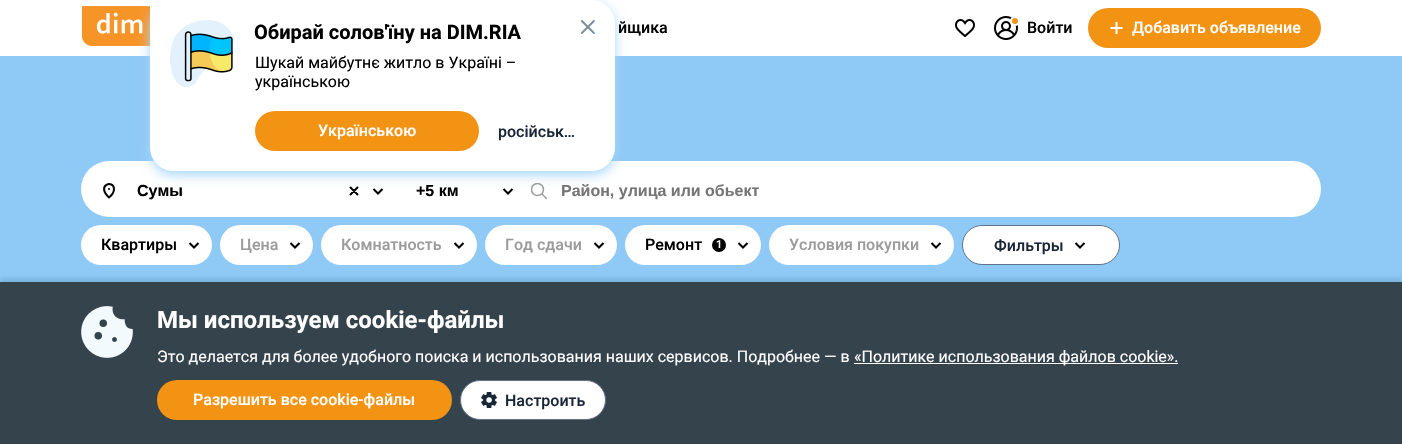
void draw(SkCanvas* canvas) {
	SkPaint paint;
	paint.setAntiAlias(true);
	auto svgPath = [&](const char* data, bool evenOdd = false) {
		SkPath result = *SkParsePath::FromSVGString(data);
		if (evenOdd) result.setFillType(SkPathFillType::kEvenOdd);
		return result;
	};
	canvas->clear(0xffffffff);
	canvas->drawImageRect(SkImages::DeferredFromEncodedData(SkData::MakeFromFileName("img3.png")), SkRect::MakeXYWH(81, 6, 69, 40), SkSamplingOptions());
	paint.setColor(0xff8fc9f6);
	canvas->drawRect(SkRect::MakeXYWH(0, 56, 1402, 226), paint);
	paint.setColor(0xffffffff);
	canvas->drawRoundRect(SkRect::MakeXYWH(81, 161, 1240, 56), 28, 28, paint);
	paint.setStroke(true);
	paint.setStrokeWidth(2);
	paint.setStrokeCap(SkPaint::kRound_Cap);
	paint.setColor(0xff000000);
	canvas->drawPath(svgPath("M350.5 187.5L357.5 194.5M357.5 187.5L350.5 194.5"), paint);
	paint.setStrokeCap(SkPaint::kButt_Cap);
	canvas->drawPath(svgPath("M373.5 189L378 193.5L382.5 189"), paint);
	canvas->drawPath(svgPath("M503.5 189L508 193.5L512.5 189"), paint);
	canvas->save();
	canvas->clipPath(svgPath("M531 183H547V199H531Z"), true);
	paint.setStrokeWidth(1.5);
	paint.setColor(0xff9b9b9b);
	canvas->drawCircle(537.5, 189.5, 6, paint);
	canvas->restore();
	paint.setStrokeCap(SkPaint::kRound_Cap);
	canvas->drawPath(svgPath("M546.5 198.5L542 194"), paint);
	paint.setStroke(false);
	paint.setColor(0xffa8d8fd);
	paint.setMaskFilter(SkMaskFilter::MakeBlur(kNormal_SkBlurStyle, 6));
	canvas->drawRoundRect(SkRect::MakeXYWH(150, 4, 465, 171), 24, 24, paint);
	paint.setMaskFilter(nullptr);
	paint.setColor(0xffffffff);
	canvas->drawPath(svgPath("M151 0H591C604.5 0 615 10.5 615 24V147C615 160.5 604.5 171 591 171H174C160.5 171 150 160.5 150 147V1C150 .5 150.5 0 151 0Z"), paint);
	canvas->drawImageRect(SkImages::DeferredFromEncodedData(SkData::MakeFromFileName("img1.png")), SkRect::MakeXYWH(170, 20, 64, 67), SkSamplingOptions());
	SkFont f1(fontMgr->matchFamilyStyle("Roboto", SkFontStyle::Bold()), 20);
	f1.setSubpixel(true);
	paint.setColor(0xff000000);
	canvas->drawString("Обирай солов'їну на DIM.RIA", 254, 39, f1, paint);
	canvas->drawImageRect(SkImages::DeferredFromEncodedData(SkData::MakeFromFileName("img2.png")), SkRect::MakeXYWH(580, 20, 15, 14), SkSamplingOptions());
	SkFont f2(fontMgr->matchFamilyStyle("Roboto", SkFontStyle::Normal()), 16);
	f2.setSubpixel(true);
	canvas->drawString("Шукай майбутнє житло в Україні –", 255, 68, f2, paint);
	canvas->drawString("українською", 255, 87, f2, paint);
	paint.setColor(0xfff39313);
	canvas->drawRoundRect(SkRect::MakeXYWH(255, 111, 224, 40), 20, 20, paint);
	SkFont f3(fontMgr->matchFamilyStyle("Roboto", SkFontStyle(500, SkFontStyle::kNormal_Width, SkFontStyle::kUpright_Slant)), 16);
	f3.setSubpixel(true);
	paint.setColor(0xffffffff);
	canvas->drawString("Українською", 318, 136, f3, paint);
	paint.setColor(0xff1a2638);
	canvas->drawString("російськ…", 498, 137, f3, paint);
	paint.setColor(0xff000000);
	canvas->drawString("йщика", 618, 33, f3, paint);
	canvas->drawImageRect(SkImages::DeferredFromEncodedData(SkData::MakeFromFileName("img4.png")), SkRect::MakeXYWH(955, 19, 20, 18), SkSamplingOptions());
	canvas->drawImageRect(SkImages::DeferredFromEncodedData(SkData::MakeFromFileName("img5.png")), SkRect::MakeXYWH(994, 16, 24, 24), SkSamplingOptions());
	canvas->drawString("Войти", 1027, 33, f3, paint);
	paint.setColor(0xfff39313);
	canvas->drawRoundRect(SkRect::MakeXYWH(1088, 8, 233, 40), 20, 20, paint);
	canvas->drawImageRect(SkImages::DeferredFromEncodedData(SkData::MakeFromFileName("img6.png")), SkRect::MakeXYWH(1110, 22, 13, 12), SkSamplingOptions());
	paint.setColor(0xffffffff);
	canvas->drawString("Добавить объявление", 1132, 33, f3, paint);
	paint.setStroke(true);
	paint.setStrokeWidth(2);
	paint.setStrokeCap(SkPaint::kButt_Cap);
	paint.setColor(0xff000000);
	canvas->drawPath(svgPath("M114 189C114 192.5 111.5 195.5 109 197.5C95.5 184.5 114 179.5 114 189Z"), paint);
	paint.setStroke(false);
	canvas->drawCircle(109, 189, 1, paint);
	SkFont f4(fontMgr->matchFamilyStyle("Liberation Sans", SkFontStyle::Bold()), 16);
	f4.setSubpixel(true);
	canvas->drawString("Сумы", 137, 196, f4, paint);
	canvas->drawString("+5 км", 416, 196, f4, paint);
	paint.setColor(0xff757575);
	canvas->drawString("Район, улица или обьект", 561, 196, f4, paint);
	paint.setColor(0xffffffff);
	canvas->drawRoundRect(SkRect::MakeXYWH(81, 225, 131, 40), 20, 20, paint);
	paint.setColor(0xff000000);
	canvas->drawString("Квартиры", 101, 250, f3, paint);
	paint.setStroke(true);
	canvas->drawPath(svgPath("M189.5 243L194 247.5L198.5 243"), paint);
	paint.setStroke(false);
	paint.setColor(0xffffffff);
	canvas->drawRoundRect(SkRect::MakeXYWH(220, 225, 93, 40), 20, 20, paint);
	paint.setColor(0xff9b9b9b);
	canvas->drawString("Цена", 240, 250, f3, paint);
	paint.setStroke(true);
	paint.setColor(0xff000000);
	canvas->drawPath(svgPath("M290.5 243L295 247.5L299.5 243"), paint);
	paint.setStroke(false);
	paint.setColor(0xffffffff);
	canvas->drawRoundRect(SkRect::MakeXYWH(321, 225, 156, 40), 20, 20, paint);
	paint.setColor(0xff9b9b9b);
	canvas->drawString("Комнатность", 341, 250, f3, paint);
	paint.setStroke(true);
	paint.setColor(0xff000000);
	canvas->drawPath(svgPath("M454.5 243L459 247.5L463.5 243"), paint);
	paint.setStroke(false);
	paint.setColor(0xffffffff);
	canvas->drawRoundRect(SkRect::MakeXYWH(485, 225, 132, 40), 20, 20, paint);
	paint.setColor(0xff9b9b9b);
	canvas->drawString("Год сдачи", 505, 250, f3, paint);
	paint.setStroke(true);
	paint.setColor(0xff000000);
	canvas->drawPath(svgPath("M594.5 243L599 247.5L603.5 243"), paint);
	paint.setStroke(false);
	paint.setColor(0xffffffff);
	canvas->drawRoundRect(SkRect::MakeXYWH(625, 225, 136, 40), 20, 20, paint);
	paint.setColor(0xff000000);
	canvas->drawString("Ремонт", 645, 250, f3, paint);
	canvas->drawCircle(719, 245, 7, paint);
	SkFont f5(fontMgr->matchFamilyStyle("Roboto", SkFontStyle(500, SkFontStyle::kNormal_Width, SkFontStyle::kUpright_Slant)), 11);
	f5.setSubpixel(true);
	paint.setColor(0xffffffff);
	canvas->drawString("1", 716, 248, f5, paint);
	paint.setStroke(true);
	paint.setColor(0xff000000);
	canvas->drawPath(svgPath("M738.5 243L743 247.5L747.5 243"), paint);
	paint.setStroke(false);
	paint.setColor(0xffffffff);
	canvas->drawRoundRect(SkRect::MakeXYWH(769, 225, 185, 40), 20, 20, paint);
	paint.setColor(0xff9b9b9b);
	canvas->drawString("Условия покупки", 789, 250, f3, paint);
	paint.setStroke(true);
	paint.setColor(0xff000000);
	canvas->drawPath(svgPath("M931.5 243L936 247.5L940.5 243"), paint);
	paint.setStroke(false);
	paint.setColor(0xffffffff);
	canvas->drawRoundRect(SkRect::MakeXYWH(962.5, 225.5, 157, 39), 19.5, 19.5, paint);
	paint.setStroke(true);
	paint.setStrokeWidth(1);
	paint.setColor(0xff62718a);
	canvas->drawRoundRect(SkRect::MakeXYWH(962.5, 225.5, 157, 39), 19.5, 19.5, paint);
	paint.setStroke(false);
	paint.setColor(0xff1a2638);
	canvas->drawString("Фильтры", 994, 251, f3, paint);
	paint.setStroke(true);
	paint.setStrokeWidth(2);
	paint.setColor(0xff000000);
	canvas->drawPath(svgPath("M1075.5 243L1080 247.5L1084.5 243"), paint);
	paint.setStroke(false);
	paint.setColor(0x26003b56);
	paint.setMaskFilter(SkMaskFilter::MakeBlur(kNormal_SkBlurStyle, 2));
	canvas->drawRect(SkRect::MakeXYWH(0, 278, 1402, 162), paint);
	paint.setMaskFilter(nullptr);
	paint.setColor(0xff35434d);
	canvas->drawRect(SkRect::MakeXYWH(0, 282, 1402, 162), paint);
	canvas->drawImageRect(SkImages::DeferredFromEncodedData(SkData::MakeFromFileName("img7.png")), SkRect::MakeXYWH(81, 306, 52, 52), SkSamplingOptions());
	SkFont f6(fontMgr->matchFamilyStyle("Roboto", SkFontStyle::Bold()), 24);
	f6.setSubpixel(true);
	paint.setColor(0xffffffff);
	canvas->drawString("Мы используем cookie-файлы", 157, 328, f6, paint);
	canvas->drawString("Это делается для более удобного поиска и использования наших сервисов. Подробнее — в", 157, 362, f2, paint);
	canvas->drawRect(SkRect::MakeXYWH(854, 363, 324, 1), paint);
	canvas->drawString("«Политике использования файлов cookie».", 854, 362, f2, paint);
	paint.setColor(0xfff39313);
	canvas->drawRoundRect(SkRect::MakeXYWH(157, 380, 295, 40), 20, 20, paint);
	paint.setColor(0xffffffff);
	canvas->drawString("Разрешить все cookie-файлы", 193, 405, f3, paint);
	canvas->drawRoundRect(SkRect::MakeXYWH(460.5, 380.5, 145, 39), 19.5, 19.5, paint);
	paint.setStroke(true);
	paint.setStrokeWidth(1);
	paint.setColor(0xff62718a);
	canvas->drawRoundRect(SkRect::MakeXYWH(460.5, 380.5, 145, 39), 19.5, 19.5, paint);
	canvas->drawImageRect(SkImages::DeferredFromEncodedData(SkData::MakeFromFileName("img8.png")), SkRect::MakeXYWH(481, 392, 16, 16), SkSamplingOptions());
	paint.setStroke(false);
	paint.setColor(0xff1a2638);
	canvas->drawString("Настроить", 505, 406, f3, paint);
}
